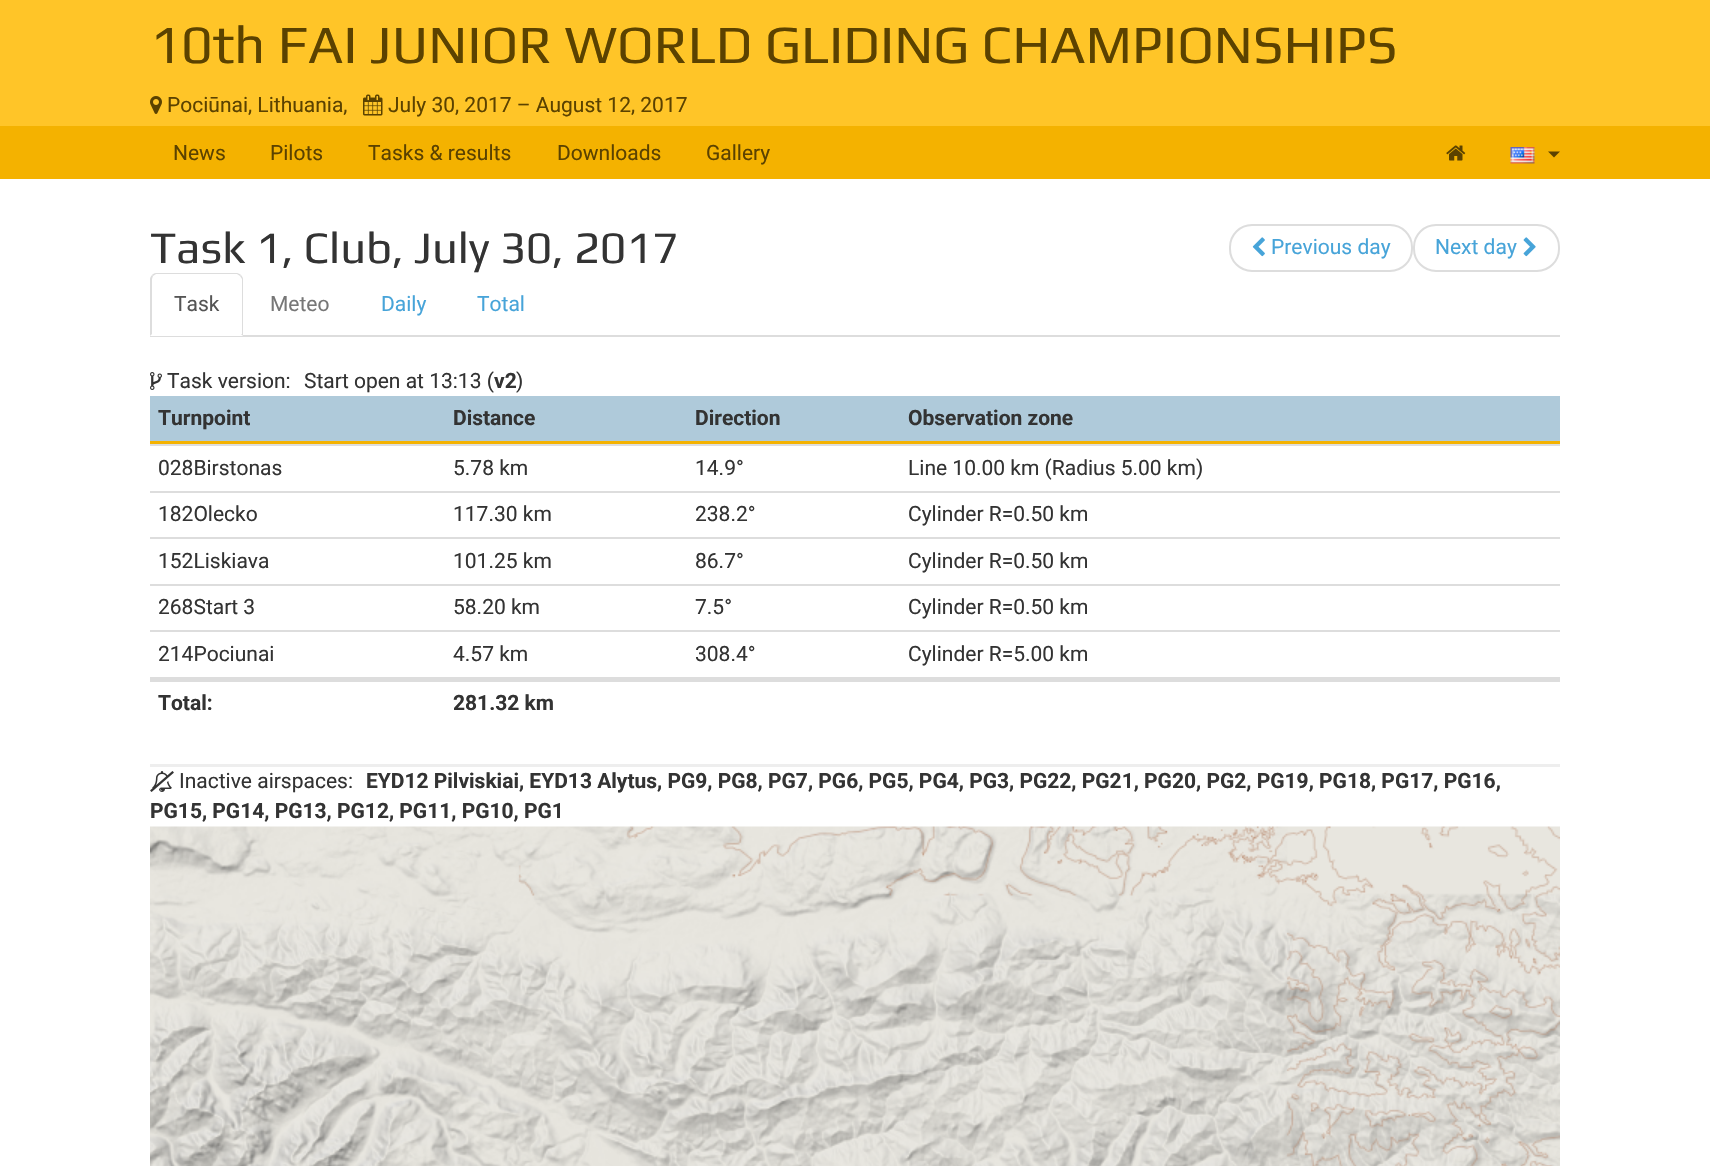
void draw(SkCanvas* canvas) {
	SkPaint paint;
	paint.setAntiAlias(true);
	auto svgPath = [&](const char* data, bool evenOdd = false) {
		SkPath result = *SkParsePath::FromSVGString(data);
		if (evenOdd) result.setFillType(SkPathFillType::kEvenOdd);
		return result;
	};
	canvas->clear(0xffffffff);
	paint.setColor(0xffffc528);
	canvas->drawRect(SkRect::MakeXYWH(0, 0, 1710, 126), paint);
	SkFont f1(fontMgr->matchFamilyStyle("Play", SkFontStyle::Normal()), 54);
	f1.setSubpixel(true);
	paint.setColor(0xff5b4200);
	canvas->drawString("10th FAI JUNIOR WORLD GLIDING CHAMPIONSHIPS", 150, 63, f1, paint);
	canvas->drawImageRect(SkImages::DeferredFromEncodedData(SkData::MakeFromFileName("img1.png")), SkRect::MakeXYWH(150, 96, 12, 18), SkSamplingOptions());
	SkFont f2(fontMgr->matchFamilyStyle("Roboto", SkFontStyle::Normal()), 21);
	f2.setSubpixel(true);
	canvas->drawString("Pociūnai, Lithuania,", 167, 112, f2, paint);
	canvas->drawImageRect(SkImages::DeferredFromEncodedData(SkData::MakeFromFileName("img2.png")), SkRect::MakeXYWH(363, 94, 20, 22), SkSamplingOptions());
	canvas->drawString("July 30, 2017 – August 12, 2017", 388, 112, f2, paint);
	paint.setColor(0xfff4b200);
	canvas->drawRect(SkRect::MakeXYWH(0, 126, 1710, 53), paint);
	paint.setColor(0xff5b4200);
	canvas->drawString("News", 173, 160, f2, paint);
	canvas->drawString("Pilots", 270, 160, f2, paint);
	canvas->drawString("Tasks & results", 368, 160, f2, paint);
	canvas->drawString("Downloads", 557, 160, f2, paint);
	canvas->drawString("Gallery", 706, 160, f2, paint);
	canvas->drawImageRect(SkImages::DeferredFromEncodedData(SkData::MakeFromFileName("img3.png")), SkRect::MakeXYWH(1446, 145, 20, 16), SkSamplingOptions());
	canvas->drawImageRect(SkImages::DeferredFromEncodedData(SkData::MakeFromFileName("img4.png")), SkRect::MakeXYWH(1510, 147, 25, 17), SkSamplingOptions());
	canvas->drawPath(svgPath("M1548 151.5H1560L1554 157.5Z"), paint);
	SkFont f3(fontMgr->matchFamilyStyle("Play", SkFontStyle::Normal()), 45);
	f3.setSubpixel(true);
	paint.setColor(0xff333333);
	canvas->drawString("Task 1, Club, July 30, 2017", 150, 263, f3, paint);
	paint.setStroke(true);
	paint.setStrokeWidth(2);
	paint.setColor(0xffdddddd);
	canvas->drawRoundRect(SkRect::MakeXYWH(1230, 225, 182, 46), 22, 22, paint);
	canvas->drawImageRect(SkImages::DeferredFromEncodedData(SkData::MakeFromFileName("img5.png")), SkRect::MakeXYWH(1252, 237, 13, 20), SkSamplingOptions());
	paint.setStroke(false);
	paint.setColor(0xff47a4d9);
	canvas->drawString("Previous day", 1271, 254, f2, paint);
	paint.setStroke(true);
	paint.setColor(0xffdddddd);
	canvas->drawRoundRect(SkRect::MakeXYWH(1414, 225, 145, 46), 22, 22, paint);
	paint.setStroke(false);
	paint.setColor(0xff47a4d9);
	canvas->drawString("Next day", 1435, 254, f2, paint);
	canvas->drawImageRect(SkImages::DeferredFromEncodedData(SkData::MakeFromFileName("img6.png")), SkRect::MakeXYWH(1523, 237, 13, 20), SkSamplingOptions());
	paint.setColor(0xffdddddd);
	canvas->drawRect(SkRect::MakeXYWH(150, 335, 1410, 2), paint);
	paint.setColor(0xffffffff);
	canvas->drawPath(svgPath("M156 273H237C240.5 273 243 275.5 243 279V336H150V279C150 275.5 152.5 273 156 273Z"), paint);
	paint.setColor(0xffdddddd);
	canvas->drawPath(svgPath("M156 273C154 273 153 274 152 275L153 276L156 274H237L240 276L241 275C240 274 238 273 237 273Z"), paint);
	canvas->drawPath(svgPath("M243 336V279C243 278 242 276 241 275L240 276L242 279V334H241Z"), paint);
	canvas->drawPath(svgPath("M150 336L152 334V279L153 276L152 275C151 276 150 278 150 279Z"), paint);
	paint.setColor(0xff555555);
	canvas->drawString("Task", 174, 311, f2, paint);
	paint.setColor(0xff777777);
	canvas->drawString("Meteo", 270, 311, f2, paint);
	paint.setColor(0xff47a4d9);
	canvas->drawString("Daily", 381, 311, f2, paint);
	canvas->drawString("Total", 477, 311, f2, paint);
	canvas->drawImageRect(SkImages::DeferredFromEncodedData(SkData::MakeFromFileName("img7.png")), SkRect::MakeXYWH(150, 372, 12, 18), SkSamplingOptions());
	paint.setColor(0xff333333);
	canvas->drawString("Task version:", 167, 388, f2, paint);
	canvas->drawString("Start open at 13:13 (", 304, 388, f2, paint);
	SkFont f4(fontMgr->matchFamilyStyle("Roboto", SkFontStyle::Bold()), 21);
	f4.setSubpixel(true);
	canvas->drawString("v2", 494, 388, f4, paint);
	canvas->drawString(")", 516, 388, f2, paint);
	paint.setColor(0xffafcada);
	canvas->drawRect(SkRect::MakeXYWH(150, 396, 1410, 45), paint);
	paint.setColor(0xfff4b200);
	canvas->drawRect(SkRect::MakeXYWH(150, 441, 1410, 3), paint);
	paint.setColor(0xff333333);
	canvas->drawString("Turnpoint", 158, 425, f4, paint);
	canvas->drawString("Distance", 453, 425, f4, paint);
	canvas->drawString("Direction", 695, 425, f4, paint);
	canvas->drawString("Observation zone", 908, 425, f4, paint);
	paint.setColor(0xffdddddd);
	canvas->drawRect(SkRect::MakeXYWH(150, 444, 1410, 2), paint);
	paint.setColor(0xff333333);
	canvas->drawString("028Birstonas", 158, 475, f2, paint);
	canvas->drawString("5.78 km", 453, 475, f2, paint);
	canvas->drawString("14.9°", 695, 475, f2, paint);
	canvas->drawString("Line 10.00 km (Radius 5.00 km)", 908, 475, f2, paint);
	paint.setColor(0xffdddddd);
	canvas->drawRect(SkRect::MakeXYWH(150, 491, 1410, 2), paint);
	paint.setColor(0xff333333);
	canvas->drawString("182Olecko", 158, 521, f2, paint);
	canvas->drawString("117.30 km", 453, 521, f2, paint);
	canvas->drawString("238.2°", 695, 521, f2, paint);
	canvas->drawString("Cylinder R=0.50 km", 908, 521, f2, paint);
	paint.setColor(0xffdddddd);
	canvas->drawRect(SkRect::MakeXYWH(150, 537, 1410, 2), paint);
	paint.setColor(0xff333333);
	canvas->drawString("152Liskiava", 158, 568, f2, paint);
	canvas->drawString("101.25 km", 453, 568, f2, paint);
	canvas->drawString("86.7°", 695, 568, f2, paint);
	canvas->drawString("Cylinder R=0.50 km", 908, 568, f2, paint);
	paint.setColor(0xffdddddd);
	canvas->drawRect(SkRect::MakeXYWH(150, 584, 1410, 2), paint);
	paint.setColor(0xff333333);
	canvas->drawString("268Start 3", 158, 614, f2, paint);
	canvas->drawString("58.20 km", 453, 614, f2, paint);
	canvas->drawString("7.5°", 695, 614, f2, paint);
	canvas->drawString("Cylinder R=0.50 km", 908, 614, f2, paint);
	paint.setColor(0xffdddddd);
	canvas->drawRect(SkRect::MakeXYWH(150, 630, 1410, 2), paint);
	paint.setColor(0xff333333);
	canvas->drawString("214Pociunai", 158, 661, f2, paint);
	canvas->drawString("4.57 km", 453, 661, f2, paint);
	canvas->drawString("308.4°", 695, 661, f2, paint);
	canvas->drawString("Cylinder R=5.00 km", 908, 661, f2, paint);
	paint.setColor(0xffdddddd);
	canvas->drawRect(SkRect::MakeXYWH(150, 677, 1410, 5), paint);
	paint.setColor(0xff333333);
	canvas->drawString("Total:", 158, 710, f4, paint);
	canvas->drawString("281.32 km", 453, 710, f4, paint);
	paint.setColor(0xffeeeeee);
	canvas->drawRect(SkRect::MakeXYWH(150, 764, 1410, 3), paint);
	canvas->drawImageRect(SkImages::DeferredFromEncodedData(SkData::MakeFromFileName("img8.png")), SkRect::MakeXYWH(150, 771, 24, 21), SkSamplingOptions());
	paint.setColor(0xff333333);
	canvas->drawString("Inactive airspaces:", 179, 788, f2, paint);
	canvas->drawString("EYD12 Pilviskiai, EYD13 Alytus, PG9, PG8, PG7, PG6, PG5, PG4, PG3, PG22, PG21, PG20, PG2, PG19, PG18, PG17, PG16,", 366, 788, f4, paint);
	canvas->drawString("PG15, PG14, PG13, PG12, PG11, PG10, PG1", 150, 818, f4, paint);
	canvas->drawImageRect(SkImages::DeferredFromEncodedData(SkData::MakeFromFileName("img9.png")), SkRect::MakeXYWH(150, 826, 1410, 340), SkSamplingOptions());
}
